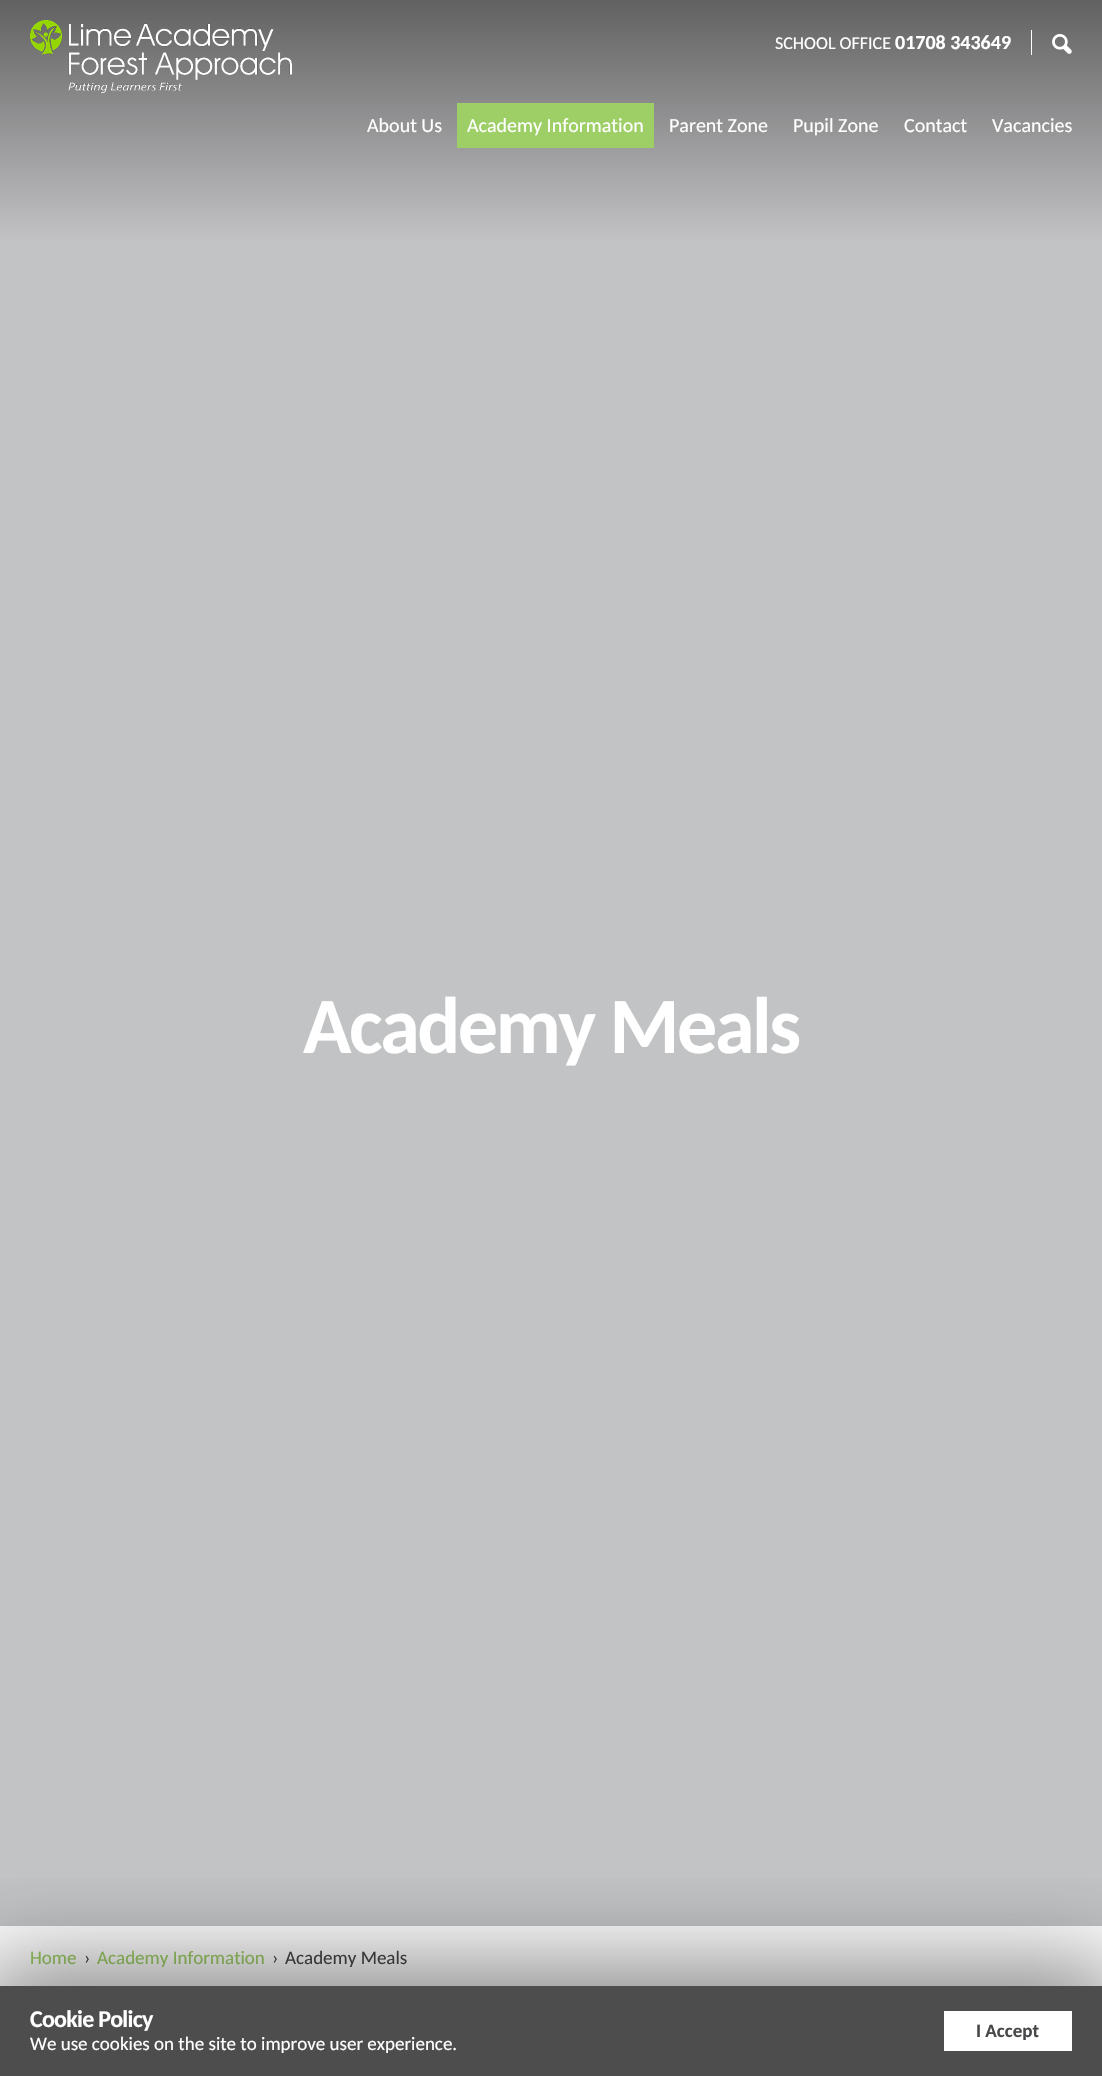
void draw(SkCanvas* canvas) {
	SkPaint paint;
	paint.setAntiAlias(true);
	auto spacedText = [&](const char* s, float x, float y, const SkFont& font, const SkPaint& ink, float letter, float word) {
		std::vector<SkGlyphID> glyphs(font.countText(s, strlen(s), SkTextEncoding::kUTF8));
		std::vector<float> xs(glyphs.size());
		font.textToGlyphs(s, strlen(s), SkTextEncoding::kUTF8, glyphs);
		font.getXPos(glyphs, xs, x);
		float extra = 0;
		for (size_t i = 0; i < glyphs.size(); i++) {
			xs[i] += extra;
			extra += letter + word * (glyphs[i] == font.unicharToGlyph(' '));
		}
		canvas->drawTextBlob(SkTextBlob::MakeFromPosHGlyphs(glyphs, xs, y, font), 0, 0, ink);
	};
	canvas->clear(0xffffffff);
	paint.setColor(0xff4d4d4d);
	canvas->drawRect(SkRect::MakeXYWH(0, 1986, 1102, 90), paint);
	{
		const SkColor colors[] = {0xff616162, 0xffc2c2c4};
		const float stops[] = {0, 1};
		const SkPoint ends[] = {{551, 0}, {551, 240}};
		paint.setShader(SkGradientShader::MakeLinear(ends, colors, stops, 2, SkTileMode::kClamp));
		paint.setAlpha(255);
	}
	canvas->drawRect(SkRect::MakeXYWH(0, 0, 1102, 240), paint);
	canvas->drawImageRect(SkImages::DeferredFromEncodedData(SkData::MakeFromFileName("img1.png")), SkRect::MakeXYWH(30, 20, 262, 73), SkSamplingOptions());
	paint.setShader(nullptr);
	paint.setColor(0xffffffff);
	canvas->drawRect(SkRect::MakeXYWH(1031, 30, 1, 25), paint);
	SkFont f1(fontMgr->matchFamilyStyle("Carlito", SkFontStyle::Normal()), 18);
	f1.setSubpixel(true);
	canvas->drawString("SCHOOL OFFICE", 775, 49, f1, paint);
	SkFont f2(fontMgr->matchFamilyStyle("Carlito", SkFontStyle::Bold()), 20);
	f2.setSubpixel(true);
	canvas->drawString("01708 343649", 895, 49, f2, paint);
	canvas->drawImageRect(SkImages::DeferredFromEncodedData(SkData::MakeFromFileName("img2.png")), SkRect::MakeXYWH(1052, 34, 20, 20), SkSamplingOptions());
	SkFont f3(fontMgr->matchFamilyStyle("Carlito", SkFontStyle::Normal()), 20);
	f3.setSubpixel(true);
	canvas->drawString("About Us", 367, 132, f3, paint);
	paint.setColor(0xff9ecf66);
	canvas->drawRect(SkRect::MakeXYWH(457, 103, 197, 45), paint);
	paint.setColor(0xffffffff);
	canvas->drawString("Academy Information", 467, 132, f3, paint);
	canvas->drawString("Parent Zone", 669, 132, f3, paint);
	canvas->drawString("Pupil Zone", 793, 132, f3, paint);
	canvas->drawString("Contact", 904, 132, f3, paint);
	canvas->drawString("Vacancies", 992, 132, f3, paint);
	paint.setColor(0xffc2c3c4);
	canvas->drawRect(SkRect::MakeXYWH(0, 240, 1102, 1686), paint);
	SkFont f4(fontMgr->matchFamilyStyle("Carlito", SkFontStyle::Bold()), 80);
	f4.setSubpixel(true);
	paint.setColor(0xffffffff);
	spacedText("Academy Meals", 303, 1053, f4, paint, -2.4, 0);
	SkFont f5(fontMgr->matchFamilyStyle("Carlito", SkFontStyle::Normal()), 19);
	f5.setSubpixel(true);
	paint.setColor(0xff9ecf66);
	canvas->drawString("Home", 30, 1964, f5, paint);
	paint.setColor(0xff464749);
	canvas->drawString("›", 84, 1964, f5, paint);
	paint.setColor(0xff9ecf66);
	canvas->drawString("Academy Information", 97, 1964, f5, paint);
	paint.setColor(0xff464749);
	canvas->drawString("›", 272, 1964, f5, paint);
	canvas->drawString("Academy Meals", 285, 1964, f5, paint);
	canvas->save();
	canvas->clipRect(SkRect::MakeXYWH(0, 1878, 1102, 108));
	paint.setColor(0x80000000);
	paint.setMaskFilter(SkMaskFilter::MakeBlur(kNormal_SkBlurStyle, 50));
	canvas->drawRect(SkRect::MakeXYWH(-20, 1966, 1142, 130), paint);
	paint.setMaskFilter(nullptr);
	canvas->restore();
	SkFont f6(fontMgr->matchFamilyStyle("Carlito", SkFontStyle::Bold()), 24);
	f6.setSubpixel(true);
	paint.setColor(0xffffffff);
	spacedText("Cookie Policy", 30, 2027, f6, paint, -0.75, 0);
	canvas->drawString("We use cookies on the site to improve user experience.", 30, 2050, f5, paint);
	canvas->drawRect(SkRect::MakeXYWH(944, 2011, 128, 40), paint);
	SkFont f7(fontMgr->matchFamilyStyle("Carlito", SkFontStyle::Bold()), 19);
	f7.setSubpixel(true);
	paint.setColor(0xff464749);
	canvas->drawString("I Accept", 976, 2037, f7, paint);
}
